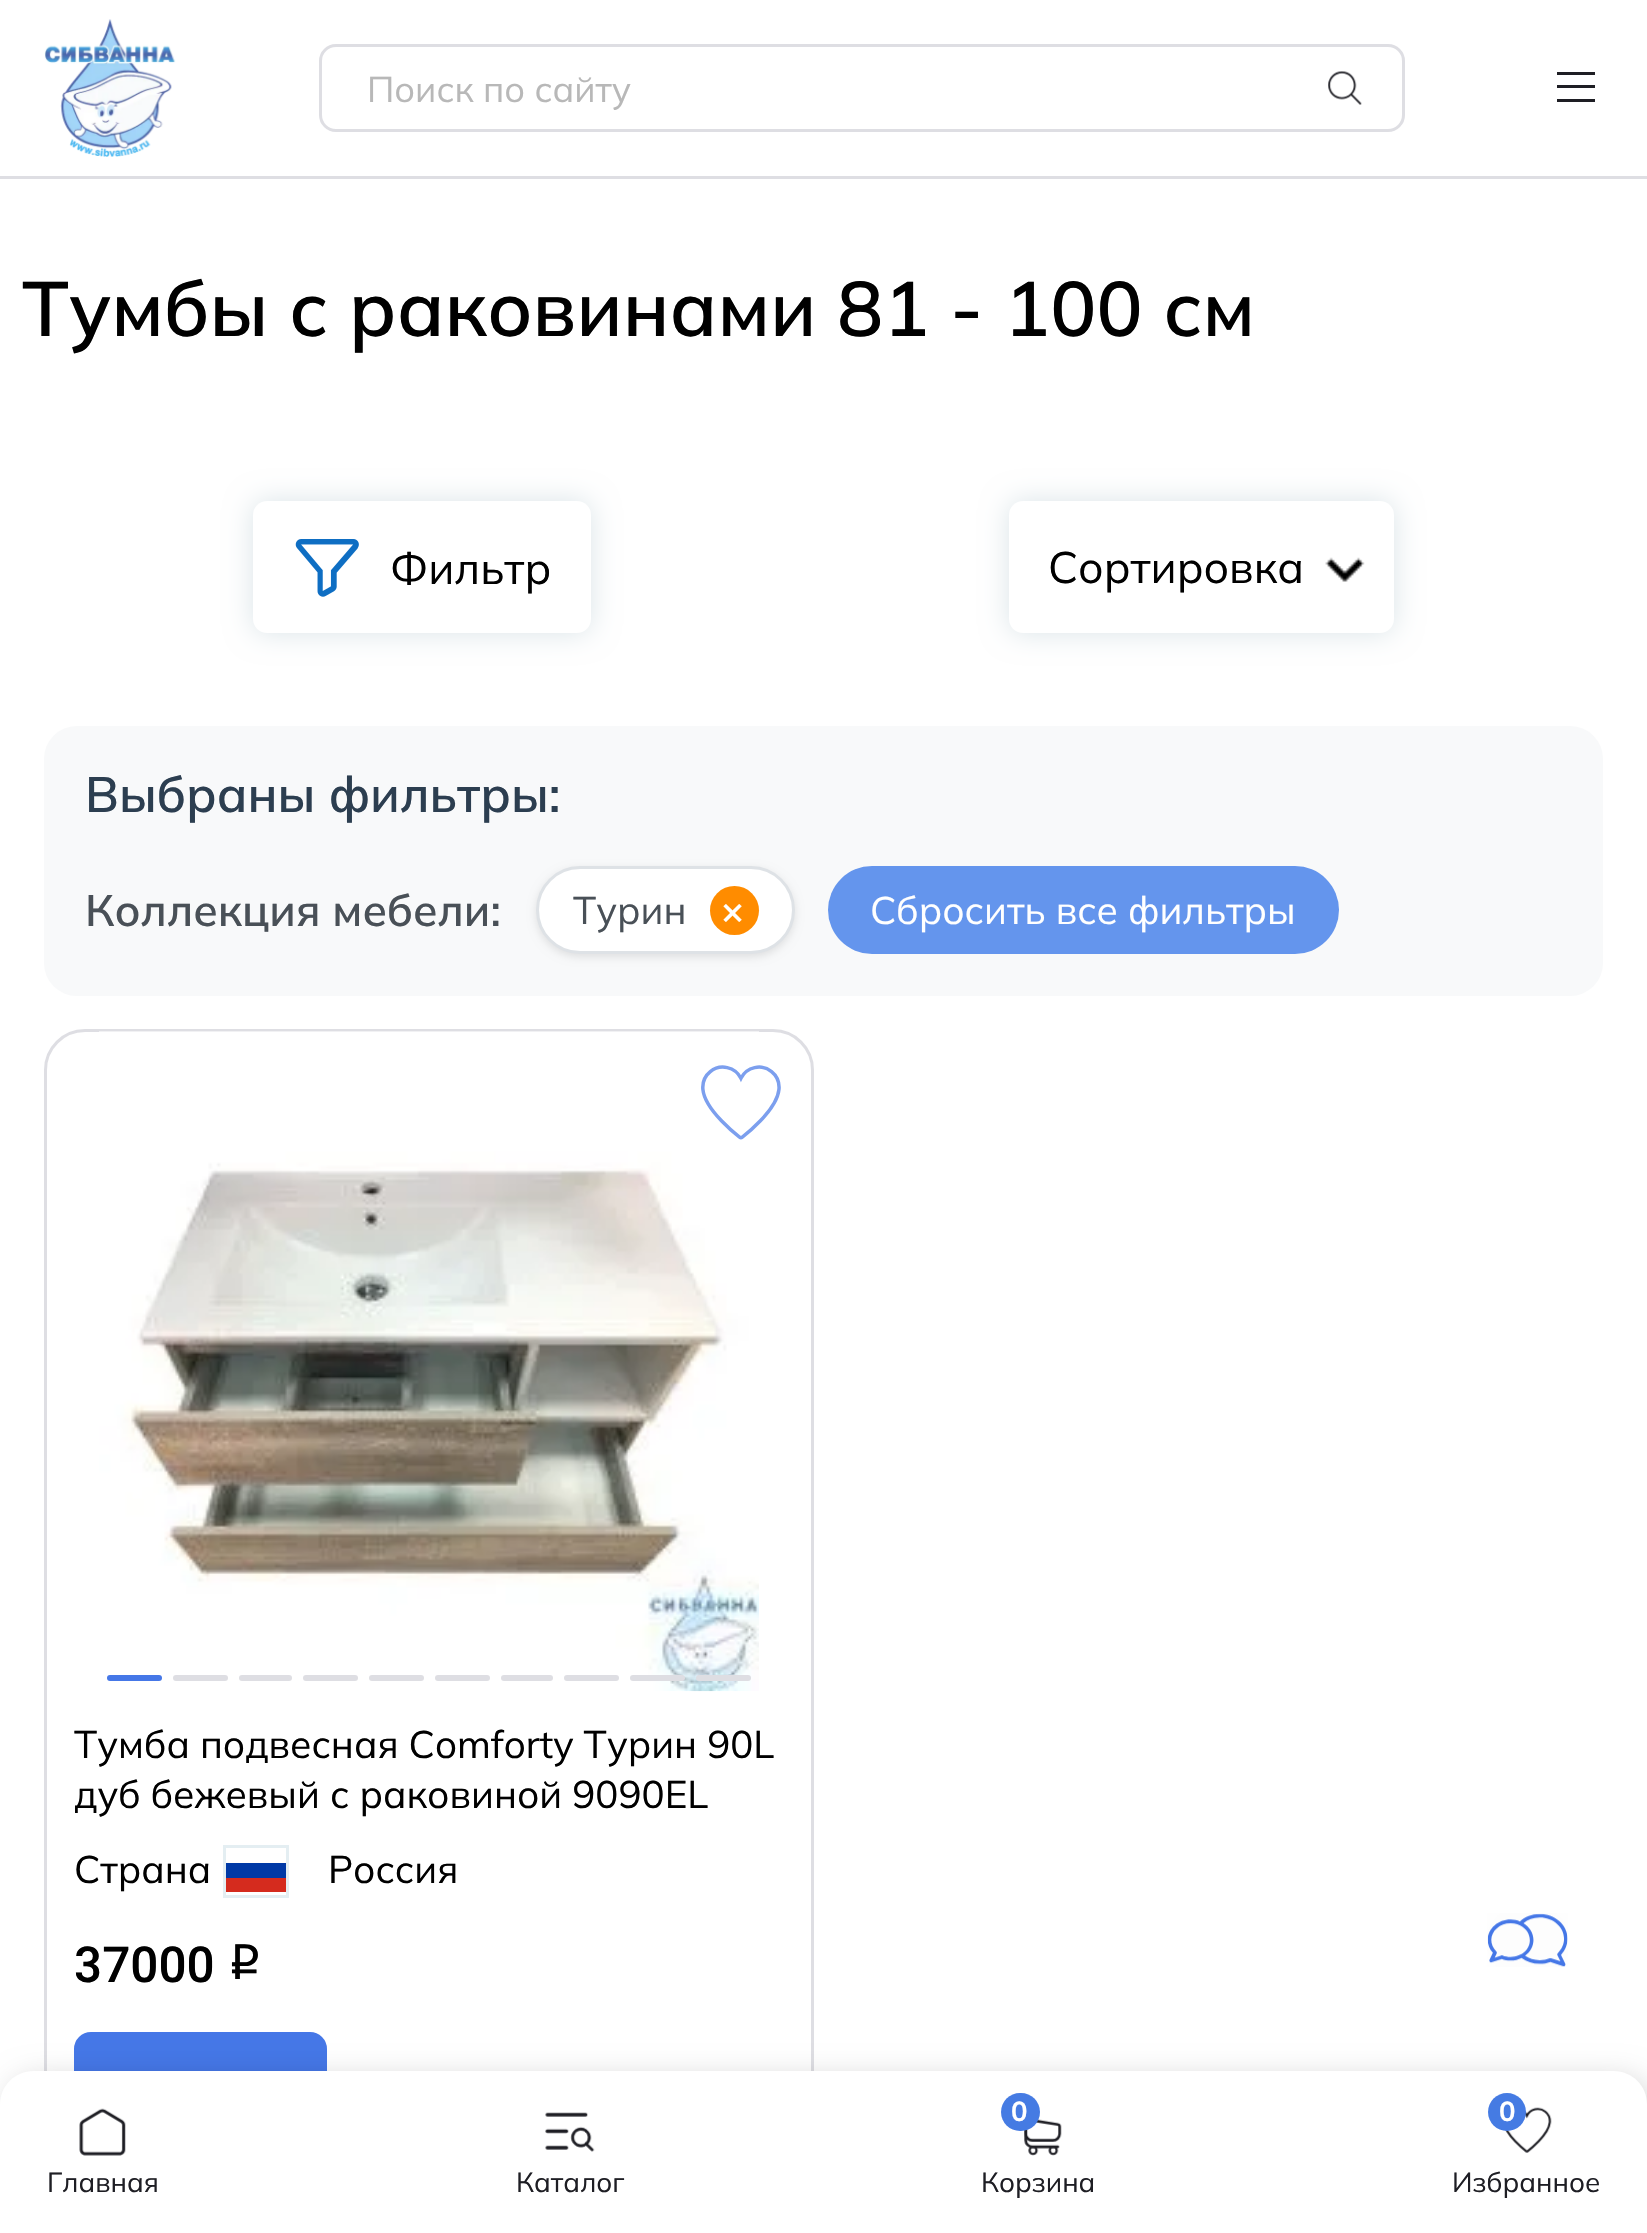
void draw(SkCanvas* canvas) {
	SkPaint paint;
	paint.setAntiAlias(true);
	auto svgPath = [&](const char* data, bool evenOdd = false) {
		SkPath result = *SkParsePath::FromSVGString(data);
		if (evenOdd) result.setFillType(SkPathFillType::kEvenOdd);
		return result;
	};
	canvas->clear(0xffffffff);
	paint.setColor(0xffdedee3);
	canvas->drawRect(SkRect::MakeXYWH(0, 176, 1647, 3), paint);
	canvas->drawImageRect(SkImages::DeferredFromEncodedData(SkData::MakeFromFileName("img1.png")), SkRect::MakeXYWH(44, 19, 132, 138), SkSamplingOptions());
	paint.setStroke(true);
	paint.setStrokeWidth(3);
	canvas->drawRoundRect(SkRect::MakeXYWH(320.5, 45.5, 1083, 85), 15.5, 15.5, paint);
	SkFont f1(fontMgr->matchFamilyStyle("Mulish", SkFontStyle::Normal()), 35.75);
	f1.setSubpixel(true);
	paint.setStroke(false);
	paint.setColor(0xffb8b8b8);
	canvas->drawString("Поиск по сайту", 367, 102, f1, paint);
	canvas->drawImageRect(SkImages::DeferredFromEncodedData(SkData::MakeFromFileName("img2.png")), SkRect::MakeXYWH(1328, 71, 34, 34), SkSamplingOptions());
	paint.setColor(0xff1e1e24);
	canvas->drawRect(SkRect::MakeXYWH(1557, 72, 38, 3), paint);
	canvas->drawRect(SkRect::MakeXYWH(1557, 85, 38, 3), paint);
	canvas->drawRect(SkRect::MakeXYWH(1557, 99, 38, 3), paint);
	SkFont f2(fontMgr->matchFamilyStyle("Mulish", SkFontStyle(600, SkFontStyle::kNormal_Width, SkFontStyle::kUpright_Slant)), 77);
	f2.setSubpixel(true);
	paint.setColor(0xff000000);
	canvas->drawString("Тумбы с раковинами 81 - 100 см", 22, 336, f2, paint);
	paint.setColor(0xffdae4e8);
	paint.setMaskFilter(SkMaskFilter::MakeBlur(kNormal_SkBlurStyle, 14));
	canvas->drawRoundRect(SkRect::MakeXYWH(253, 501, 338, 132), 14, 14, paint);
	paint.setMaskFilter(nullptr);
	paint.setColor(0xffffffff);
	canvas->drawRoundRect(SkRect::MakeXYWH(253, 501, 338, 132), 14, 14, paint);
	canvas->drawImageRect(SkImages::DeferredFromEncodedData(SkData::MakeFromFileName("img3.png")), SkRect::MakeXYWH(295, 539, 64, 58), SkSamplingOptions());
	SkFont f3(fontMgr->matchFamilyStyle("Mulish", SkFontStyle::Normal()), 44);
	f3.setSubpixel(true);
	paint.setColor(0xff000000);
	canvas->drawString("Фильтр", 390, 584, f3, paint);
	paint.setColor(0xffdae4e8);
	paint.setMaskFilter(SkMaskFilter::MakeBlur(kNormal_SkBlurStyle, 14));
	canvas->drawRoundRect(SkRect::MakeXYWH(1009, 501, 385, 132), 14, 14, paint);
	paint.setMaskFilter(nullptr);
	paint.setColor(0xffffffff);
	canvas->drawRoundRect(SkRect::MakeXYWH(1009, 501, 385, 132), 14, 14, paint);
	paint.setColor(0xff000000);
	canvas->drawString("Сортировка", 1048, 583, f3, paint);
	canvas->drawImageRect(SkImages::DeferredFromEncodedData(SkData::MakeFromFileName("img4.png")), SkRect::MakeXYWH(1325, 557, 40, 25), SkSamplingOptions());
	paint.setColor(0xfff8f9fa);
	canvas->drawRoundRect(SkRect::MakeXYWH(44, 726, 1559, 270), 33, 33, paint);
	SkFont f4(fontMgr->matchFamilyStyle("Mulish", SkFontStyle(600, SkFontStyle::kNormal_Width, SkFontStyle::kUpright_Slant)), 49.5);
	f4.setSubpixel(true);
	paint.setColor(0xff2c3e50);
	canvas->drawString("Выбраны фильтры:", 85, 812, f4, paint);
	SkFont f5(fontMgr->matchFamilyStyle("Mulish", SkFontStyle(600, SkFontStyle::kNormal_Width, SkFontStyle::kUpright_Slant)), 44);
	f5.setSubpixel(true);
	paint.setColor(0xff495057);
	canvas->drawString("Коллекция мебели:", 85, 926, f5, paint);
	paint.setColor(0x1a000000);
	paint.setMaskFilter(SkMaskFilter::MakeBlur(kNormal_SkBlurStyle, 4));
	canvas->drawRoundRect(SkRect::MakeXYWH(536, 869, 259, 88), 44, 44, paint);
	paint.setMaskFilter(nullptr);
	paint.setColor(0xffffffff);
	canvas->drawRoundRect(SkRect::MakeXYWH(537.5, 867.5, 256, 85), 42.5, 42.5, paint);
	paint.setStroke(true);
	paint.setColor(0xffdee2e6);
	canvas->drawRoundRect(SkRect::MakeXYWH(537.5, 867.5, 256, 85), 42.5, 42.5, paint);
	SkFont f6(fontMgr->matchFamilyStyle("Mulish", SkFontStyle::Normal()), 38.5);
	f6.setSubpixel(true);
	paint.setStroke(false);
	paint.setColor(0xff495057);
	canvas->drawString("Турин", 573, 924, f6, paint);
	paint.setColor(0xffff8c00);
	canvas->drawCircle(734.5, 910.5, 24.5, paint);
	SkFont f7(fontMgr->matchFamilyStyle("Mulish", SkFontStyle::Bold()), 38.5);
	f7.setSubpixel(true);
	paint.setColor(0xffffffff);
	canvas->drawString("×", 721, 924, f7, paint);
	paint.setColor(0xff6495ed);
	canvas->drawRoundRect(SkRect::MakeXYWH(828, 866, 511, 88), 44, 44, paint);
	paint.setColor(0xffffffff);
	canvas->drawString("Сбросить все фильтры", 870, 924, f6, paint);
	paint.setStroke(true);
	paint.setColor(0xffdedee3);
	canvas->drawRoundRect(SkRect::MakeXYWH(45.5, 1030.5, 767, 1141), 39.5, 39.5, paint);
	canvas->drawImageRect(SkImages::DeferredFromEncodedData(SkData::MakeFromFileName("img6.png")), SkRect::MakeXYWH(99, 1031, 660, 661), SkSamplingOptions());
	canvas->drawImageRect(SkImages::DeferredFromEncodedData(SkData::MakeFromFileName("img5.png")), SkRect::MakeXYWH(701, 1065, 80, 75), SkSamplingOptions());
	paint.setStroke(false);
	paint.setColor(0xff4577e7);
	canvas->drawRoundRect(SkRect::MakeXYWH(107, 1675, 55, 6), 3, 3, paint);
	paint.setColor(0xffdedee3);
	canvas->drawRoundRect(SkRect::MakeXYWH(173, 1675, 55, 6), 3, 3, paint);
	canvas->drawRoundRect(SkRect::MakeXYWH(239, 1675, 53, 6), 3, 3, paint);
	canvas->drawRoundRect(SkRect::MakeXYWH(303, 1675, 55, 6), 3, 3, paint);
	canvas->drawRoundRect(SkRect::MakeXYWH(369, 1675, 55, 6), 3, 3, paint);
	canvas->drawRoundRect(SkRect::MakeXYWH(435, 1675, 55, 6), 3, 3, paint);
	canvas->drawRoundRect(SkRect::MakeXYWH(501, 1675, 52, 6), 3, 3, paint);
	canvas->drawRoundRect(SkRect::MakeXYWH(564, 1675, 55, 6), 3, 3, paint);
	canvas->drawRoundRect(SkRect::MakeXYWH(630, 1675, 55, 6), 3, 3, paint);
	canvas->drawRoundRect(SkRect::MakeXYWH(696, 1675, 55, 6), 3, 3, paint);
	paint.setColor(0xff000000);
	canvas->drawString("Тумба подвесная Comforty Турин 90L", 74, 1758, f6, paint);
	canvas->drawString("дуб бежевый с раковиной 9090EL", 74, 1808, f6, paint);
	canvas->drawString("Страна", 74, 1883, f6, paint);
	paint.setColor(0xff0039a6);
	canvas->drawRect(SkRect::MakeXYWH(226, 1863, 60, 15), paint);
	paint.setColor(0xffd52b1e);
	canvas->drawRect(SkRect::MakeXYWH(226, 1878, 60, 14), paint);
	paint.setStroke(true);
	paint.setColor(0xffe4eef2);
	canvas->drawRect(SkRect::MakeXYWH(224.5, 1846.5, 63, 50), paint);
	paint.setStroke(false);
	paint.setColor(0xff000000);
	canvas->drawString("Россия", 328, 1883, f6, paint);
	SkFont f8(fontMgr->matchFamilyStyle("Roboto", SkFontStyle(500, SkFontStyle::kNormal_Width, SkFontStyle::kUpright_Slant)), 49.5);
	f8.setSubpixel(true);
	canvas->drawString("37000", 74, 1982, f8, paint);
	SkFont f9(fontMgr->matchFamilyStyle("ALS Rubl", SkFontStyle::Normal()), 49.5);
	f9.setSubpixel(true);
	canvas->drawString("q", 229, 1979, f9, paint);
	paint.setColor(0xff4577e7);
	canvas->drawRoundRect(SkRect::MakeXYWH(75.5, 2033.5, 250, 107), 15.5, 15.5, paint);
	paint.setStroke(true);
	canvas->drawRoundRect(SkRect::MakeXYWH(75.5, 2033.5, 250, 107), 15.5, 15.5, paint);
	canvas->drawImageRect(SkImages::DeferredFromEncodedData(SkData::MakeFromFileName("img7.png")), SkRect::MakeXYWH(1487, 1913, 81, 54), SkSamplingOptions());
	paint.setStroke(false);
	paint.setColor(0x26000000);
	paint.setMaskFilter(SkMaskFilter::MakeBlur(kNormal_SkBlurStyle, 14));
	canvas->drawRoundRect(SkRect::MakeXYWH(6, 2076, 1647, 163), 33, 33, paint);
	paint.setMaskFilter(nullptr);
	paint.setColor(0xffffffff);
	canvas->drawPath(svgPath("M33 2071H1614C1632 2071 1647 2086 1647 2104V2233H0V2104C0 2086 15 2071 33 2071Z"), paint);
	canvas->drawImageRect(SkImages::DeferredFromEncodedData(SkData::MakeFromFileName("img8.png")), SkRect::MakeXYWH(79, 2108, 47, 48), SkSamplingOptions());
	SkFont f10(fontMgr->matchFamilyStyle("Mulish", SkFontStyle::Normal()), 27.5);
	f10.setSubpixel(true);
	paint.setColor(0xff1e1e24);
	canvas->drawString("Главная", 47, 2192, f10, paint);
	canvas->drawImageRect(SkImages::DeferredFromEncodedData(SkData::MakeFromFileName("img9.png")), SkRect::MakeXYWH(545, 2112, 50, 40), SkSamplingOptions());
	canvas->drawString("Каталог", 516, 2192, f10, paint);
	canvas->drawImageRect(SkImages::DeferredFromEncodedData(SkData::MakeFromFileName("img10.png")), SkRect::MakeXYWH(1024, 2119, 38, 37), SkSamplingOptions());
	paint.setColor(0xff457be3);
	canvas->drawRoundRect(SkRect::MakeXYWH(1001, 2093, 39, 38), 19, 19, paint);
	SkFont f11(fontMgr->matchFamilyStyle("Mulish", SkFontStyle::Bold()), 27.5);
	f11.setSubpixel(true);
	paint.setColor(0xffffffff);
	canvas->drawString("0", 1011, 2121, f11, paint);
	paint.setColor(0xff1e1e24);
	canvas->drawString("Корзина", 981, 2192, f10, paint);
	canvas->drawImageRect(SkImages::DeferredFromEncodedData(SkData::MakeFromFileName("img11.png")), SkRect::MakeXYWH(1505, 2107, 47, 46), SkSamplingOptions());
	paint.setColor(0xff457be3);
	canvas->drawCircle(1507, 2112, 19, paint);
	paint.setColor(0xffffffff);
	canvas->drawString("0", 1499, 2121, f11, paint);
	paint.setColor(0xff1e1e24);
	canvas->drawString("Избранное", 1452, 2192, f10, paint);
}
